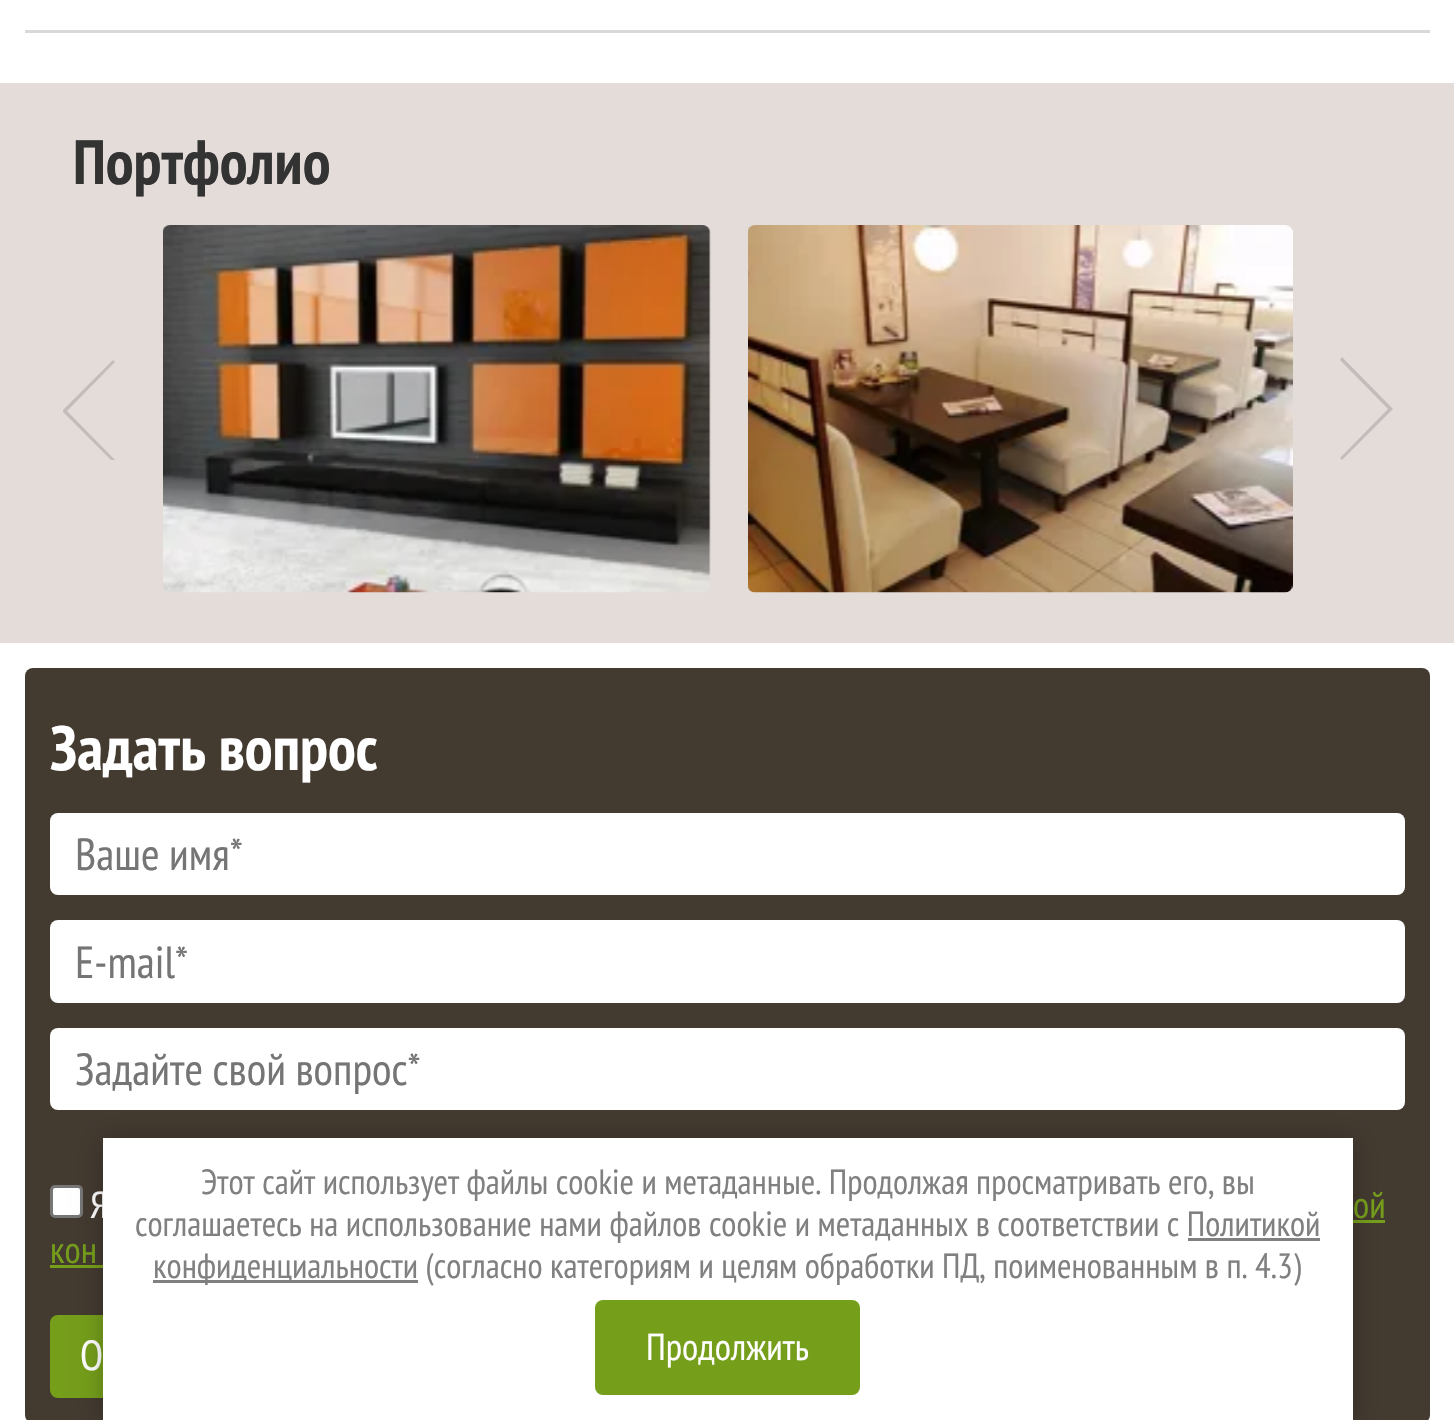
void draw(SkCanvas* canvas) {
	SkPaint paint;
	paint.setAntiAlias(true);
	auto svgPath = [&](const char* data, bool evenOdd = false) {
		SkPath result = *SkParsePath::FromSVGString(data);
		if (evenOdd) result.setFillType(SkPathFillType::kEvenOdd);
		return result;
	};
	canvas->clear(0xffffffff);
	paint.setColor(0xffd9d9d9);
	canvas->drawRect(SkRect::MakeXYWH(25, 30, 1405, 3), paint);
	paint.setColor(0xffe4dcd9);
	canvas->drawRect(SkRect::MakeXYWH(0, 83, 1454, 560), paint);
	SkFont f1(fontMgr->matchFamilyStyle("PT Sans Narrow", SkFontStyle::Bold()), 62.5);
	f1.setSubpixel(true);
	paint.setColor(0xff333333);
	canvas->drawString("Портфолио", 73, 184, f1, paint);
	canvas->drawImageRect(SkImages::DeferredFromEncodedData(SkData::MakeFromFileName("img1.png")), SkRect::MakeXYWH(163, 225, 548, 368), SkSamplingOptions());
	canvas->drawImageRect(SkImages::DeferredFromEncodedData(SkData::MakeFromFileName("img2.png")), SkRect::MakeXYWH(748, 225, 545, 368), SkSamplingOptions());
	canvas->save();
	canvas->clipRect(SkRect::MakeXYWH(63, 358, 52, 102));
	paint.setColor(0xffc3bcbb);
	canvas->drawPath(svgPath("M113 360L62 411L113 462L115 460L67 411L115 362Z"), paint);
	canvas->restore();
	canvas->drawPath(svgPath("M1342 460L1393 409L1342 357L1340 360L1388 409L1340 458Z"), paint);
	paint.setColor(0xff433a30);
	canvas->drawRoundRect(SkRect::MakeXYWH(25, 668, 1405, 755), 8, 8, paint);
	paint.setColor(0xffffffff);
	canvas->drawString("Задать вопрос", 50, 770, f1, paint);
	canvas->drawRoundRect(SkRect::MakeXYWH(50, 813, 1355, 82), 8, 8, paint);
	SkFont f2(fontMgr->matchFamilyStyle("PT Sans Narrow", SkFontStyle::Normal()), 45);
	f2.setSubpixel(true);
	paint.setColor(0xff757575);
	canvas->drawString("Ваше имя*", 75, 870, f2, paint);
	paint.setColor(0xffffffff);
	canvas->drawRoundRect(SkRect::MakeXYWH(50, 920, 1355, 83), 8, 8, paint);
	paint.setColor(0xff757575);
	canvas->drawString("E-mail*", 75, 978, f2, paint);
	paint.setColor(0xffffffff);
	canvas->drawRoundRect(SkRect::MakeXYWH(50, 1028, 1355, 82), 8, 8, paint);
	paint.setColor(0xff757575);
	canvas->drawString("Задайте свой вопрос*", 75, 1085, f2, paint);
	paint.setColor(0xffffffff);
	canvas->drawRoundRect(SkRect::MakeXYWH(51.5, 1186.5, 30, 30), 3.5, 3.5, paint);
	paint.setStroke(true);
	paint.setStrokeWidth(3);
	paint.setColor(0xff767676);
	canvas->drawRoundRect(SkRect::MakeXYWH(51.5, 1186.5, 30, 30), 3.5, 3.5, paint);
	SkFont f3(fontMgr->matchFamilyStyle("PT Sans Narrow", SkFontStyle::Normal()), 37.5);
	f3.setSubpixel(true);
	paint.setStroke(false);
	paint.setColor(0xffffffff);
	canvas->drawString("Я", 90, 1218, f3, paint);
	paint.setColor(0xff759e1b);
	canvas->drawString("ой", 1353, 1218, f3, paint);
	canvas->drawRect(SkRect::MakeXYWH(1353, 1220, 32, 3), paint);
	canvas->drawString("кон", 50, 1263, f3, paint);
	canvas->drawRect(SkRect::MakeXYWH(50, 1265, 53, 3), paint);
	canvas->drawRoundRect(SkRect::MakeXYWH(50, 1315, 215, 83), 8, 8, paint);
	SkFont f4(fontMgr->matchFamilyStyle("PT Sans Narrow", SkFontStyle::Normal()), 42);
	f4.setSubpixel(true);
	paint.setColor(0xffffffff);
	canvas->drawString("О", 80, 1370, f4, paint);
	paint.setColor(0x3b000000);
	paint.setMaskFilter(SkMaskFilter::MakeBlur(kNormal_SkBlurStyle, 12.5));
	canvas->drawRect(SkRect::MakeXYWH(103, 1140, 1250, 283), paint);
	paint.setMaskFilter(nullptr);
	paint.setColor(0xffffffff);
	canvas->drawRect(SkRect::MakeXYWH(103, 1138, 1250, 282), paint);
	SkFont f5(fontMgr->matchFamilyStyle("PT Sans Narrow", SkFontStyle::Normal()), 35);
	f5.setSubpixel(true);
	paint.setColor(0xff808080);
	canvas->drawString("Этот сайт использует файлы cookie и метаданные. Продолжая просматривать его, вы", 201, 1194, f5, paint);
	canvas->drawString("соглашаетесь на использование нами файлов cookie и метаданных в соответствии с Политикой", 135, 1236, f5, paint);
	canvas->drawRect(SkRect::MakeXYWH(153, 1280, 265, 3), paint);
	canvas->drawString("конфиденциальности (согласно категориям и целям обработки ПД, поименованным в п. 4.3)", 153, 1278, f5, paint);
	canvas->drawRect(SkRect::MakeXYWH(1188, 1238, 132, 3), paint);
	paint.setColor(0xff759e1b);
	canvas->drawRoundRect(SkRect::MakeXYWH(595, 1300, 265, 95), 8, 8, paint);
	paint.setColor(0xffffffff);
	canvas->drawString("Продолжить", 646, 1360, f3, paint);
}
